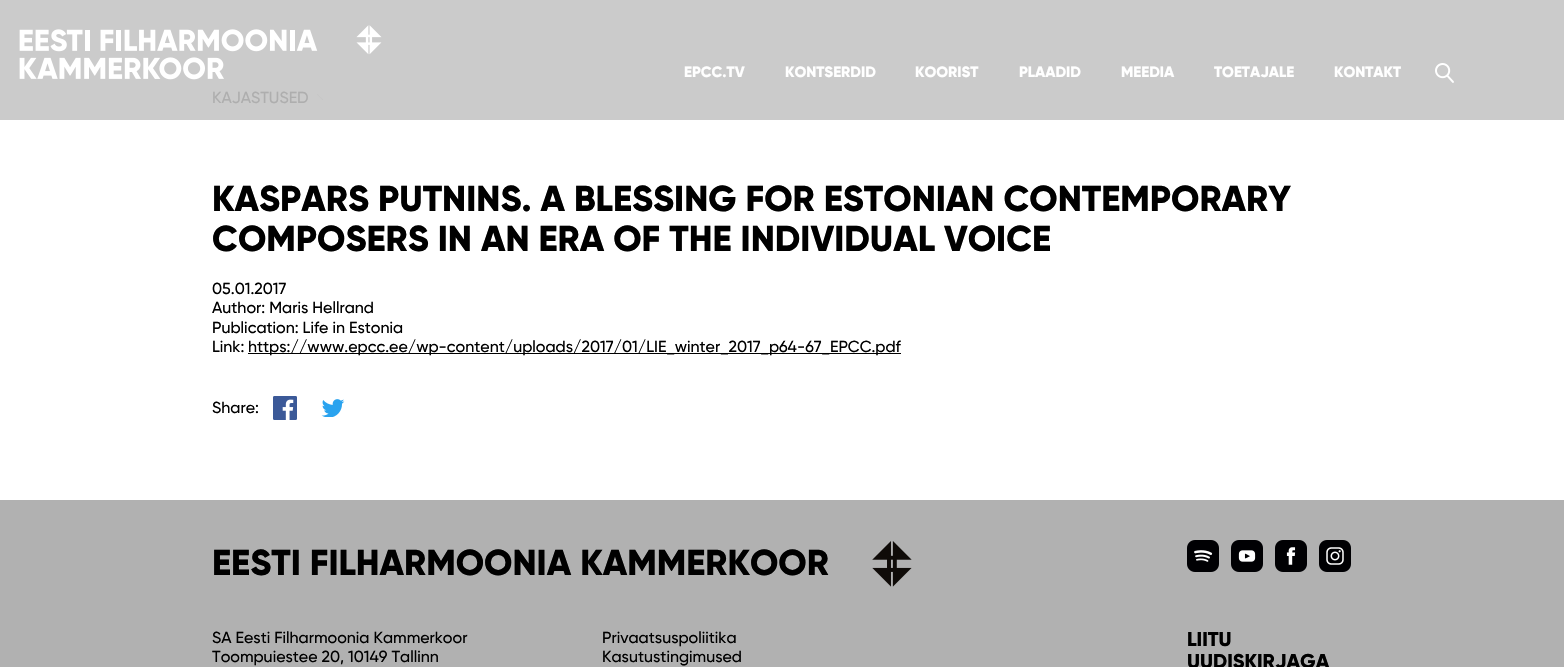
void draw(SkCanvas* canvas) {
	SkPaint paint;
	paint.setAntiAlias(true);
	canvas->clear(0xffffffff);
	paint.setColor(0xffcbcbcb);
	canvas->drawRect(SkRect::MakeXYWH(0, 0, 1564, 120), paint);
	canvas->drawImageRect(SkImages::DeferredFromEncodedData(SkData::MakeFromFileName("img1.png")), SkRect::MakeXYWH(19, 25, 363, 55), SkSamplingOptions());
	SkFont f1(fontMgr->matchFamilyStyle("Gilroy", SkFontStyle(800, SkFontStyle::kNormal_Width, SkFontStyle::kUpright_Slant)), 15);
	f1.setSubpixel(true);
	paint.setColor(0xffffffff);
	canvas->drawString("EPCC.TV", 684, 77, f1, paint);
	canvas->drawString("KONTSERDID", 785, 77, f1, paint);
	canvas->drawString("KOORIST", 915, 77, f1, paint);
	canvas->drawString("PLAADID", 1019, 77, f1, paint);
	canvas->drawString("MEEDIA", 1121, 77, f1, paint);
	canvas->drawString("TOETAJALE", 1214, 77, f1, paint);
	canvas->drawString("KONTAKT", 1334, 77, f1, paint);
	canvas->drawImageRect(SkImages::DeferredFromEncodedData(SkData::MakeFromFileName("img2.png")), SkRect::MakeXYWH(1435, 63, 19, 20), SkSamplingOptions());
	SkFont f2(fontMgr->matchFamilyStyle("Gilroy", SkFontStyle(500, SkFontStyle::kNormal_Width, SkFontStyle::kUpright_Slant)), 16);
	f2.setSubpixel(true);
	paint.setColor(0xffaeaeae);
	canvas->drawString("KAJASTUSED", 212, 103, f2, paint);
	canvas->drawImageRect(SkImages::DeferredFromEncodedData(SkData::MakeFromFileName("img3.png")), SkRect::MakeXYWH(317, 94, 6, 6), SkSamplingOptions());
	SkFont f3(fontMgr->matchFamilyStyle("Gilroy", SkFontStyle(800, SkFontStyle::kNormal_Width, SkFontStyle::kUpright_Slant)), 36);
	f3.setSubpixel(true);
	paint.setColor(0xff000000);
	canvas->drawString("KASPARS PUTNINS. A BLESSING FOR ESTONIAN CONTEMPORARY", 212, 211, f3, paint);
	canvas->drawString("COMPOSERS IN AN ERA OF THE INDIVIDUAL VOICE", 212, 251, f3, paint);
	canvas->drawString("05.01.2017", 212, 294, f2, paint);
	canvas->drawString("Author: Maris Hellrand", 212, 313, f2, paint);
	canvas->drawString("Publication: Life in Estonia", 212, 333, f2, paint);
	canvas->drawString("Link:", 212, 352, f2, paint);
	canvas->drawRect(SkRect::MakeXYWH(248, 353, 653, 1), paint);
	canvas->drawString("https://www.epcc.ee/wp-content/uploads/2017/01/LIE_winter_2017_p64-67_EPCC.pdf", 248, 352, f2, paint);
	canvas->drawString("Share:", 212, 413, f2, paint);
	canvas->drawImageRect(SkImages::DeferredFromEncodedData(SkData::MakeFromFileName("img4.png")), SkRect::MakeXYWH(273, 396, 24, 24), SkSamplingOptions());
	canvas->drawImageRect(SkImages::DeferredFromEncodedData(SkData::MakeFromFileName("img5.png")), SkRect::MakeXYWH(321, 399, 24, 18), SkSamplingOptions());
	paint.setColor(0xffb1b1b1);
	canvas->drawRect(SkRect::MakeXYWH(0, 500, 1564, 167), paint);
	canvas->drawImageRect(SkImages::DeferredFromEncodedData(SkData::MakeFromFileName("img6.png")), SkRect::MakeXYWH(872, 541, 40, 46), SkSamplingOptions());
	paint.setColor(0xff000000);
	canvas->drawString("EESTI FILHARMOONIA KAMMERKOOR", 212, 575, f3, paint);
	canvas->drawImageRect(SkImages::DeferredFromEncodedData(SkData::MakeFromFileName("img7.png")), SkRect::MakeXYWH(1187, 540, 32, 32), SkSamplingOptions());
	canvas->drawImageRect(SkImages::DeferredFromEncodedData(SkData::MakeFromFileName("img8.png")), SkRect::MakeXYWH(1231, 540, 32, 32), SkSamplingOptions());
	canvas->drawImageRect(SkImages::DeferredFromEncodedData(SkData::MakeFromFileName("img9.png")), SkRect::MakeXYWH(1275, 540, 32, 32), SkSamplingOptions());
	canvas->drawImageRect(SkImages::DeferredFromEncodedData(SkData::MakeFromFileName("img10.png")), SkRect::MakeXYWH(1319, 540, 32, 32), SkSamplingOptions());
	canvas->drawString("SA Eesti Filharmoonia Kammerkoor", 212, 643, f2, paint);
	canvas->drawString("Toompuiestee 20, 10149 Tallinn", 212, 662, f2, paint);
	canvas->drawString("Privaatsuspoliitika", 602, 643, f2, paint);
	canvas->drawString("Kasutustingimused", 602, 662, f2, paint);
	SkFont f4(fontMgr->matchFamilyStyle("Gilroy", SkFontStyle(800, SkFontStyle::kNormal_Width, SkFontStyle::kUpright_Slant)), 20);
	f4.setSubpixel(true);
	canvas->drawString("LIITU", 1187, 646, f4, paint);
	canvas->drawString("UUDISKIRJAGA", 1187, 668, f4, paint);
}
